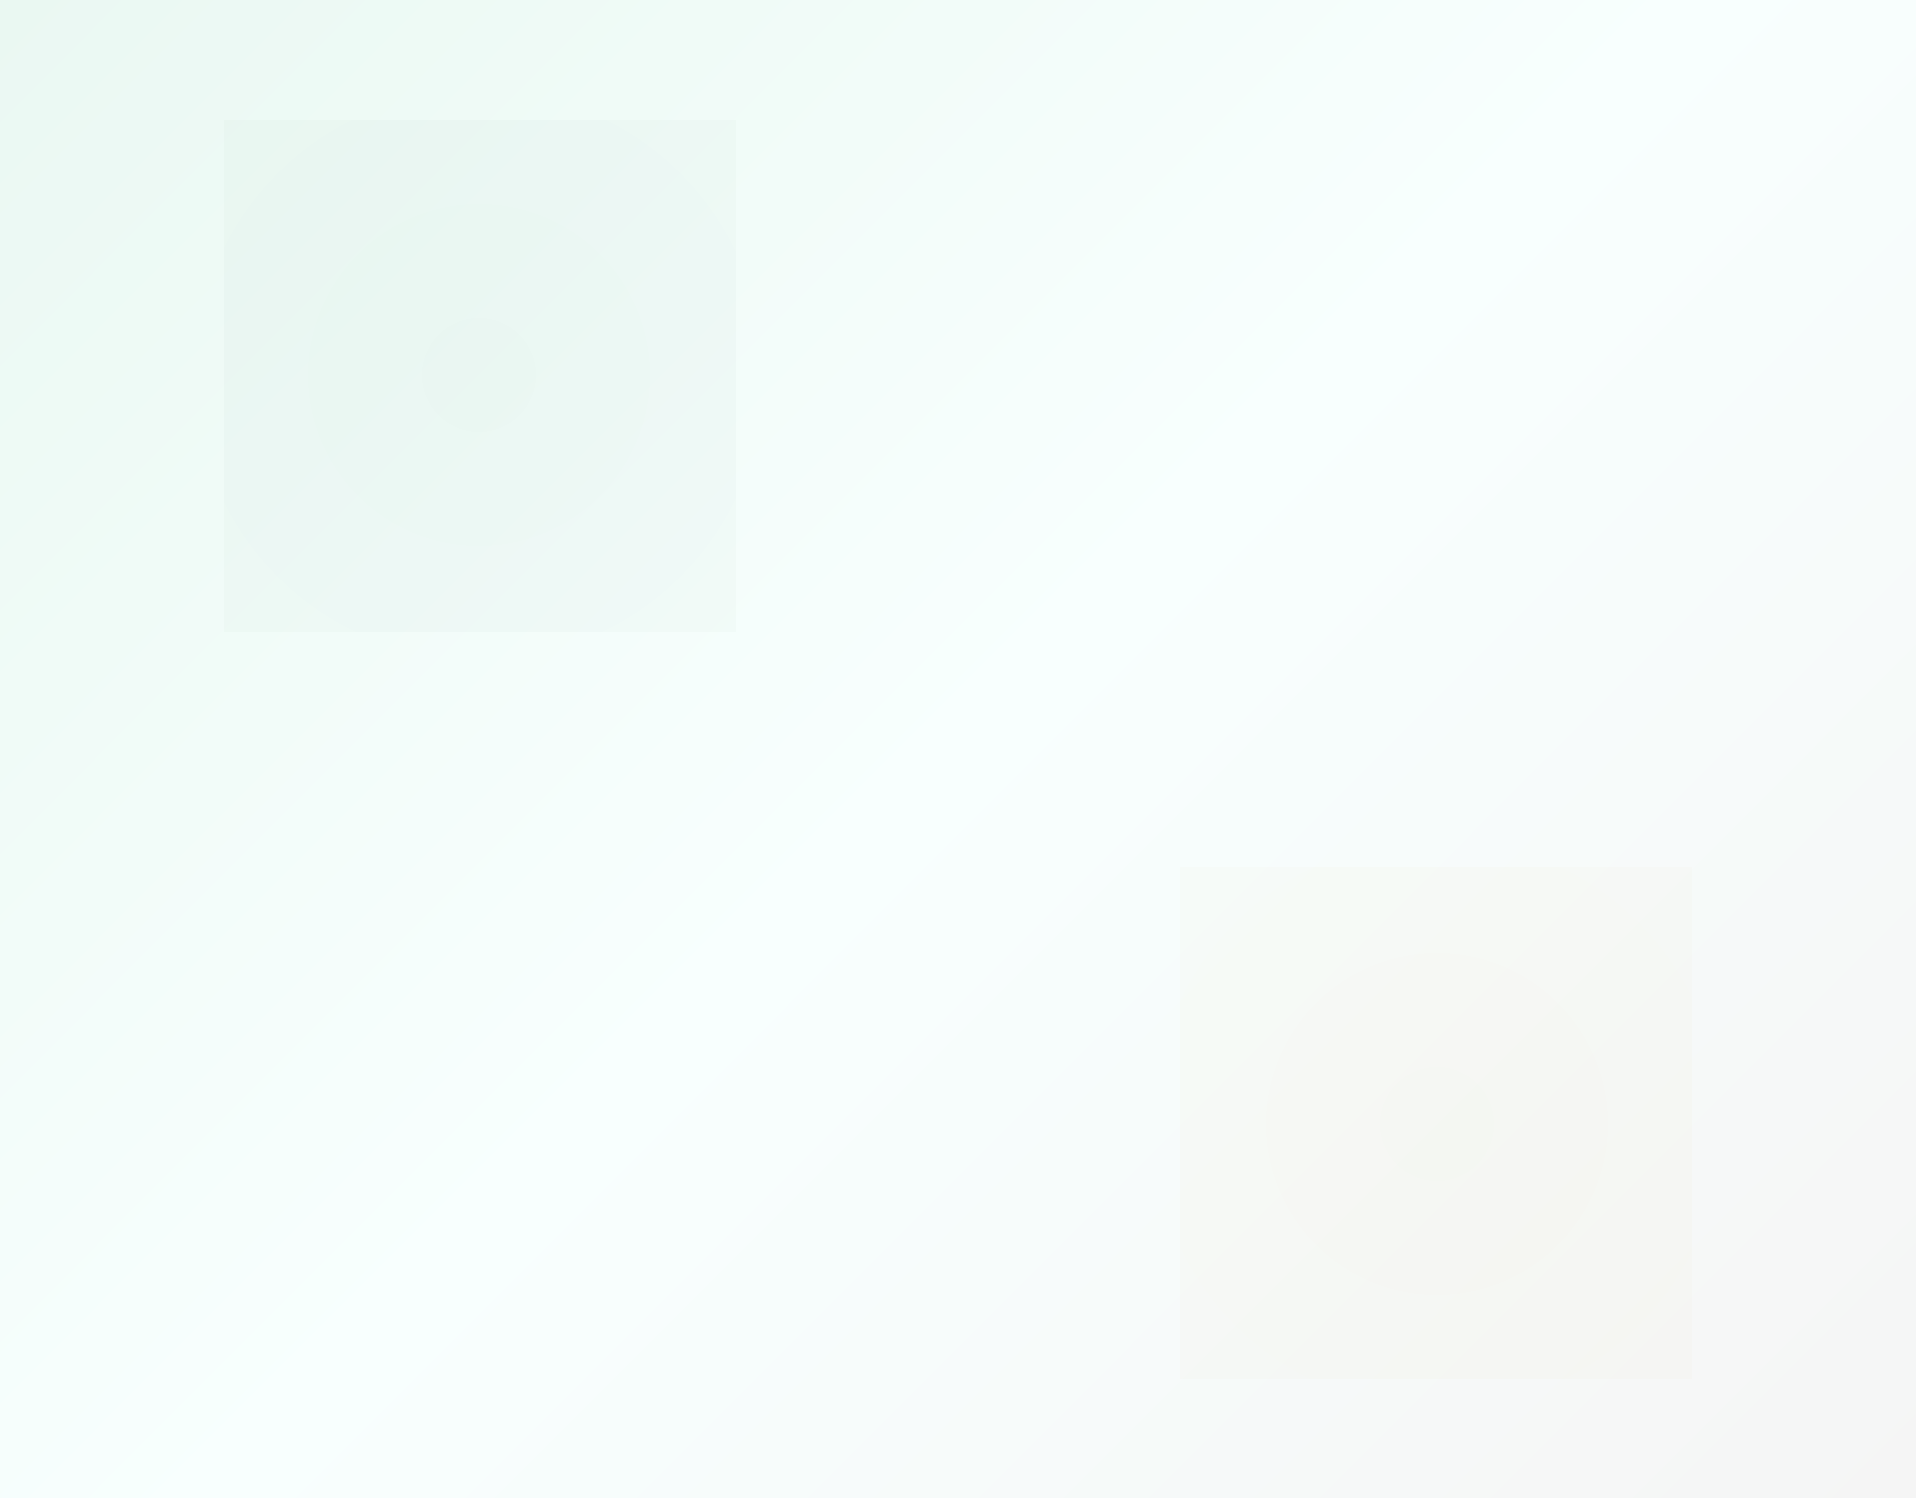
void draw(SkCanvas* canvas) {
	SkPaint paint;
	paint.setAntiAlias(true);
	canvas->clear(0xffffffff);
	{
		const SkColor colors[] = {0xffeaf8f2, 0xfff8fffe, 0xfff5f5f5};
		const float stops[] = {0, 0.5, 1};
		const SkPoint ends[] = {{104, -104}, {1812, 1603}};
		paint.setShader(SkGradientShader::MakeLinear(ends, colors, stops, 3, SkTileMode::kClamp));
		paint.setAlpha(255);
	}
	canvas->drawRect(SkRect::MakeXYWH(0, 0, 1916, 1498), paint);
	{
		const SkColor colors[] = {0x08c9a227, 0x00c9a227};
		const float stops[] = {0, 0.5};
		paint.setShader(SkGradientShader::MakeRadial({1437, 1124}, 1824, colors, stops, 2, SkTileMode::kClamp));
		paint.setAlpha(255);
	}
	canvas->drawRect(SkRect::MakeXYWH(1180, 867, 512, 512), paint);
	{
		const SkColor colors[] = {0x081a5f4a, 0x001a5f4a};
		const float stops[] = {0, 0.5};
		paint.setShader(SkGradientShader::MakeRadial({479, 375}, 1824, colors, stops, 2, SkTileMode::kClamp));
		paint.setAlpha(255);
	}
	canvas->drawRect(SkRect::MakeXYWH(224, 120, 512, 512), paint);
}
